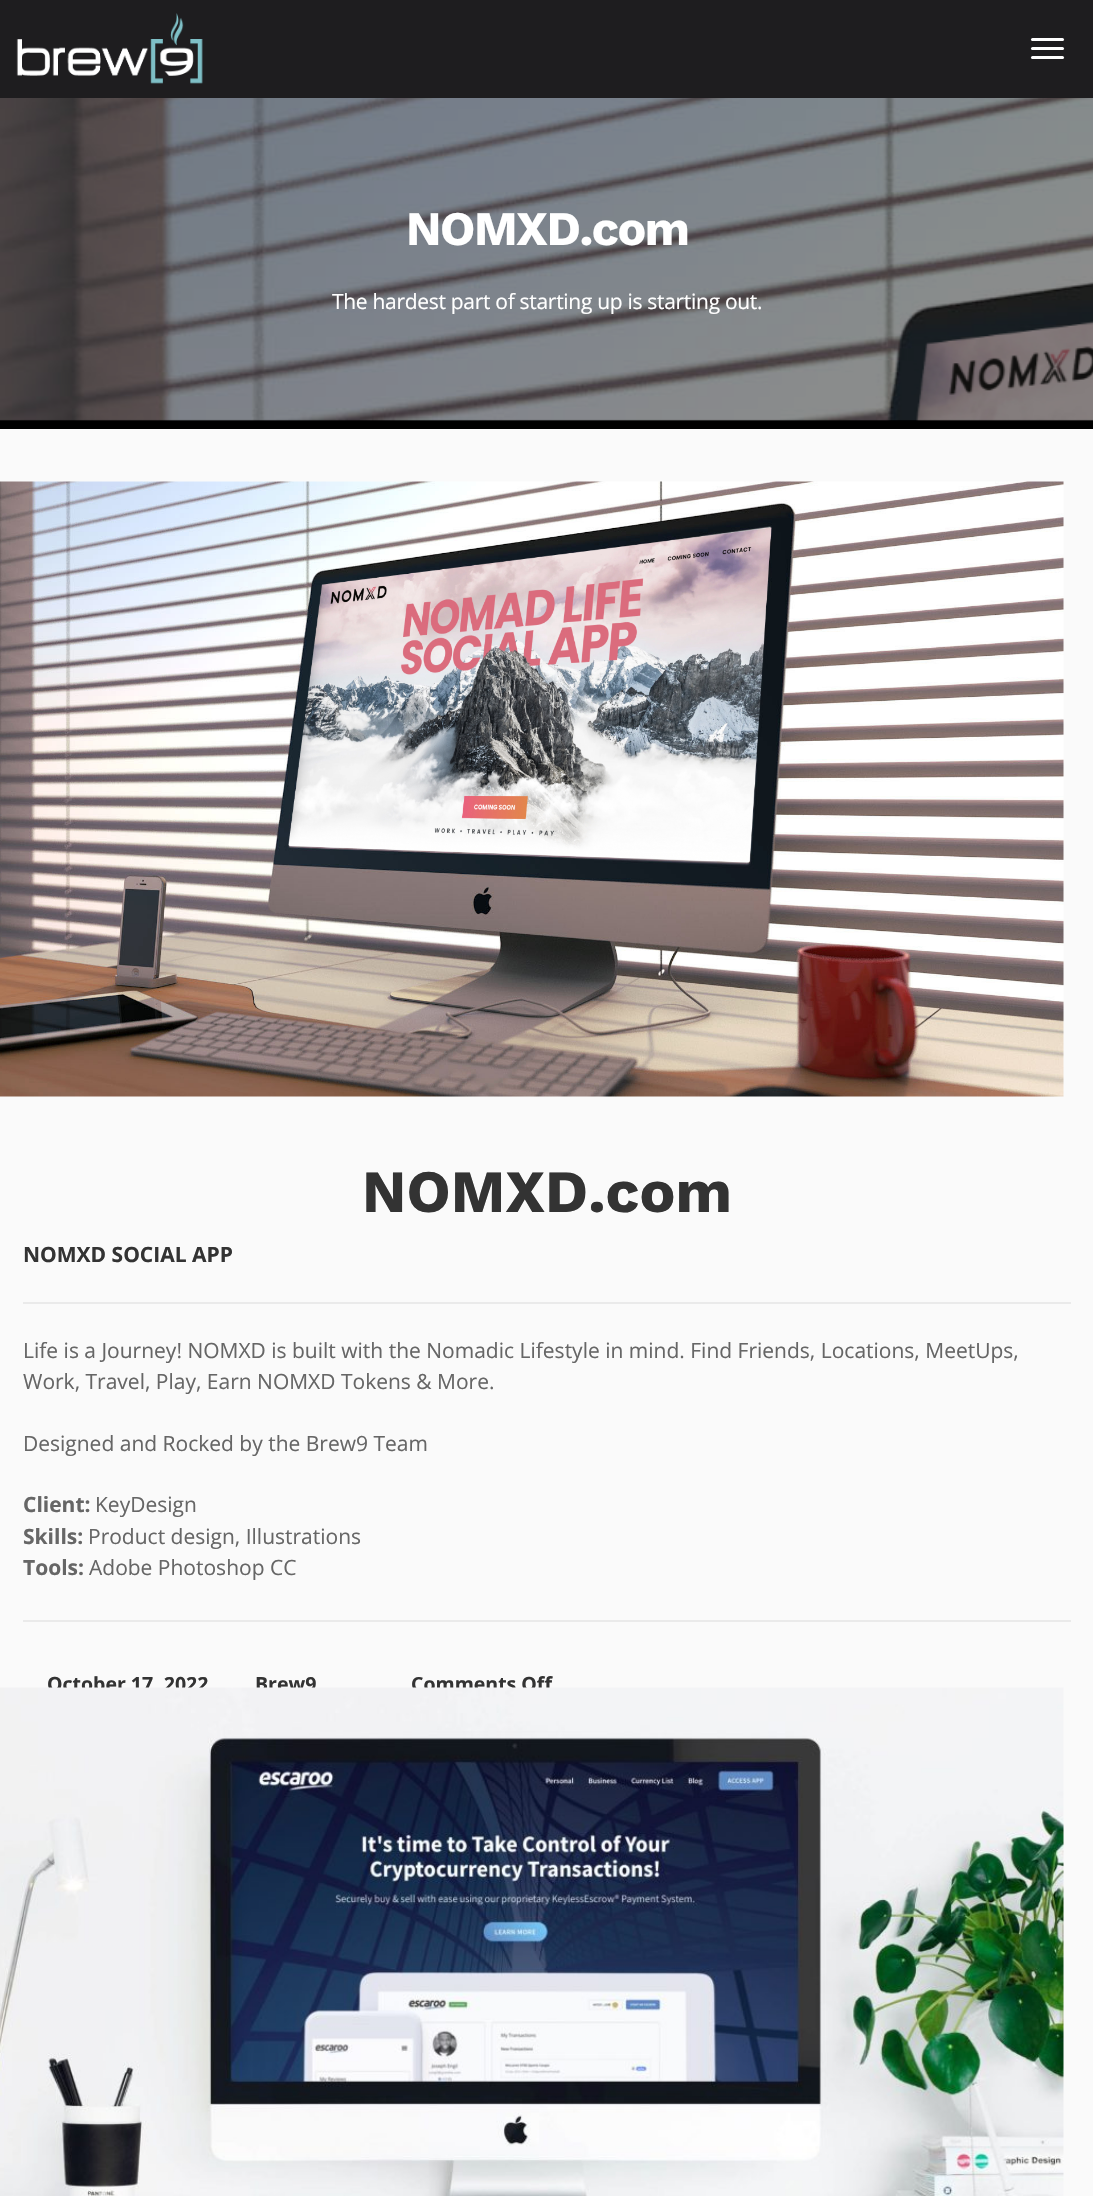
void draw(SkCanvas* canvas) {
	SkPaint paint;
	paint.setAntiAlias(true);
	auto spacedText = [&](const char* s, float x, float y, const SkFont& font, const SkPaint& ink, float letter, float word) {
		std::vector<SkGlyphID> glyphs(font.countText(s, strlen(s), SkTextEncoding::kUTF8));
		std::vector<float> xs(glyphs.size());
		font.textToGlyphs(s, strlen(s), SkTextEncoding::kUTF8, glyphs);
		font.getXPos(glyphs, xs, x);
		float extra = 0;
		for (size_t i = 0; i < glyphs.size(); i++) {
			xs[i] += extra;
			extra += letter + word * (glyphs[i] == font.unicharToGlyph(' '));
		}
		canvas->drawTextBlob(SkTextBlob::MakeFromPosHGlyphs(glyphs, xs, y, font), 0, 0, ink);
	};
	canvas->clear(0xfffafafa);
	paint.setColor(0xff1e1d1f);
	canvas->drawRect(SkRect::MakeXYWH(0, 0, 1093, 98), paint);
	canvas->drawImageRect(SkImages::DeferredFromEncodedData(SkData::MakeFromFileName("img1.png")), SkRect::MakeXYWH(16, 13, 187, 71), SkSamplingOptions());
	paint.setColor(0xffffffff);
	canvas->drawRoundRect(SkRect::MakeXYWH(1031, 38, 33, 3), 1.5, 1.5, paint);
	canvas->drawRoundRect(SkRect::MakeXYWH(1031, 47, 33, 3), 1.5, 1.5, paint);
	canvas->drawRoundRect(SkRect::MakeXYWH(1031, 56, 33, 3), 1.5, 1.5, paint);
	paint.setColor(0xff000000);
	canvas->drawRect(SkRect::MakeXYWH(0, 420, 1093, 9), paint);
	paint.setColor(0xff1a1a1a);
	canvas->drawRect(SkRect::MakeXYWH(0, 98, 1093, 322), paint);
	canvas->drawImageRect(SkImages::DeferredFromEncodedData(SkData::MakeFromFileName("img2.png")), SkRect::MakeXYWH(0, 98, 1093, 323), SkSamplingOptions());
	SkFont f1(fontMgr->matchFamilyStyle("Work Sans", SkFontStyle::Bold()), 48);
	f1.setSubpixel(true);
	paint.setColor(0xffffffff);
	spacedText("NOMXD.com", 406, 245, f1, paint, -1.5, 0);
	SkFont f2(fontMgr->matchFamilyStyle("Open Sans", SkFontStyle::Normal()), 21);
	f2.setSubpixel(true);
	spacedText("The hardest part of starting up is starting out.", 332, 309, f2, paint, -0.3, 0);
	canvas->drawImageRect(SkImages::DeferredFromEncodedData(SkData::MakeFromFileName("img3.png")), SkRect::MakeXYWH(0, 481, 1064, 616), SkSamplingOptions());
	SkFont f3(fontMgr->matchFamilyStyle("Work Sans", SkFontStyle::Bold()), 60);
	f3.setSubpixel(true);
	paint.setColor(0xff333333);
	canvas->drawString("NOMXD.com", 362, 1212, f3, paint);
	paint.setColor(0xffeaeaea);
	canvas->drawRect(SkRect::MakeXYWH(23, 1302, 1048, 2), paint);
	SkFont f4(fontMgr->matchFamilyStyle("Open Sans", SkFontStyle::Bold()), 21);
	f4.setSubpixel(true);
	paint.setColor(0xff333333);
	canvas->drawString("NOMXD SOCIAL APP", 23, 1262, f4, paint);
	paint.setColor(0xff666666);
	canvas->drawString("Life is a Journey! NOMXD is built with the Nomadic Lifestyle in mind. Find Friends, Locations, MeetUps,", 23, 1358, f2, paint);
	canvas->drawString("Work, Travel, Play, Earn NOMXD Tokens & More.", 23, 1389, f2, paint);
	canvas->drawString("Designed and Rocked by the Brew9 Team", 23, 1451, f2, paint);
	canvas->drawString("Client:", 23, 1512, f4, paint);
	canvas->drawString("KeyDesign", 95, 1512, f2, paint);
	canvas->drawString("Skills:", 23, 1544, f4, paint);
	canvas->drawString("Product design, Illustrations", 88, 1544, f2, paint);
	canvas->drawString("Tools:", 23, 1575, f4, paint);
	canvas->drawString("Adobe Photoshop CC", 89, 1575, f2, paint);
	paint.setColor(0xffeaeaea);
	canvas->drawRect(SkRect::MakeXYWH(23, 1620, 1048, 2), paint);
	SkFont f5(fontMgr->matchFamilyStyle("Open Sans", SkFontStyle::Bold()), 19.5);
	f5.setSubpixel(true);
	paint.setColor(0xff333333);
	canvas->drawString("October 17, 2022", 47, 1691, f5, paint);
	canvas->drawString("Brew9", 255, 1691, f5, paint);
	canvas->drawString("Comments Off", 411, 1691, f5, paint);
	canvas->drawImageRect(SkImages::DeferredFromEncodedData(SkData::MakeFromFileName("img4.png")), SkRect::MakeXYWH(0, 1687, 1064, 509), SkSamplingOptions());
}
